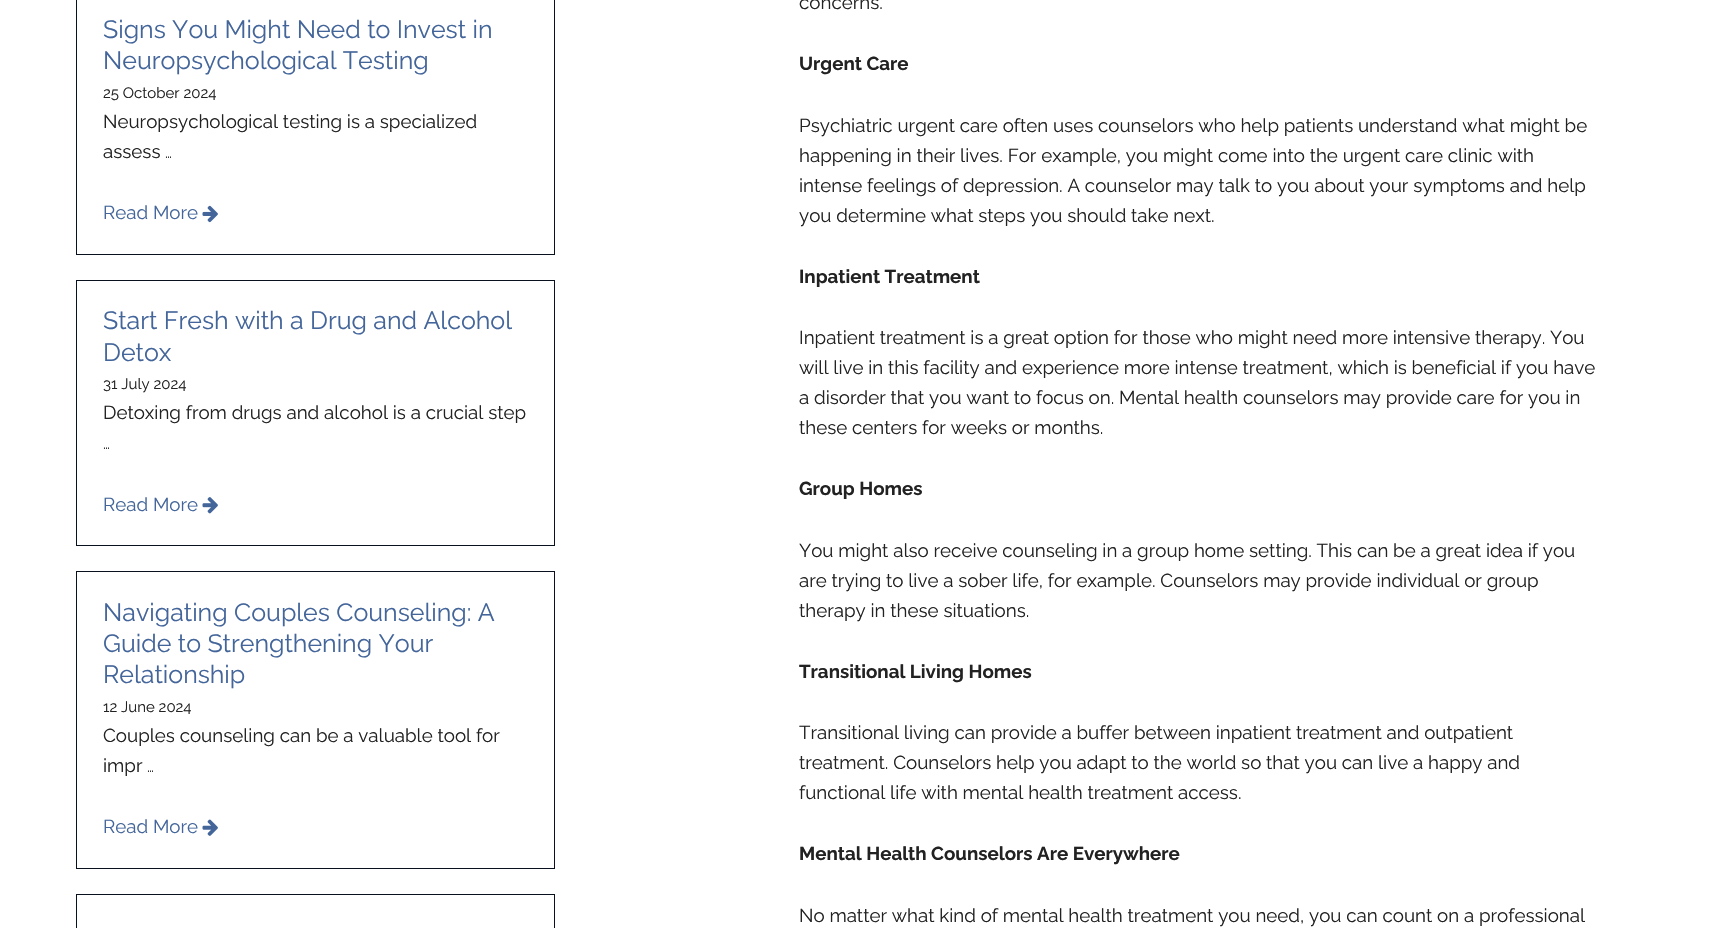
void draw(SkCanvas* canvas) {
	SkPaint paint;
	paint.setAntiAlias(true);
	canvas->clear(0xffffffff);
	paint.setStroke(true);
	paint.setStrokeWidth(1);
	paint.setColor(0xff09111e);
	canvas->drawRect(SkRect::MakeXYWH(76.5, -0.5, 478, 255), paint);
	SkFont f1(fontMgr->matchFamilyStyle("Raleway", SkFontStyle::Normal()), 25);
	f1.setSubpixel(true);
	paint.setStroke(false);
	paint.setColor(0xff43659a);
	canvas->drawString("Signs You Might Need to Invest in", 103, 38, f1, paint);
	canvas->drawString("Neuropsychological Testing", 103, 69, f1, paint);
	SkFont f2(fontMgr->matchFamilyStyle("Raleway", SkFontStyle::Normal()), 15);
	f2.setSubpixel(true);
	paint.setColor(0xff222222);
	canvas->drawString("25 October 2024", 103, 98, f2, paint);
	SkFont f3(fontMgr->matchFamilyStyle("Raleway", SkFontStyle::Normal()), 18.75);
	f3.setSubpixel(true);
	canvas->drawString("Neuropsychological testing is a specialized", 103, 128, f3, paint);
	canvas->drawString("assess", 103, 158, f3, paint);
	canvas->drawString("…", 165, 158, f2, paint);
	paint.setColor(0xff43659a);
	canvas->drawString("Read More", 103, 219, f3, paint);
	canvas->drawImageRect(SkImages::DeferredFromEncodedData(SkData::MakeFromFileName("img1.png")), SkRect::MakeXYWH(202, 205, 16, 18), SkSamplingOptions());
	paint.setStroke(true);
	paint.setColor(0xff09111e);
	canvas->drawRect(SkRect::MakeXYWH(76.5, 280.5, 478, 265), paint);
	paint.setStroke(false);
	paint.setColor(0xff43659a);
	canvas->drawString("Start Fresh with a Drug and Alcohol", 103, 329, f1, paint);
	canvas->drawString("Detox", 103, 361, f1, paint);
	paint.setColor(0xff222222);
	canvas->drawString("31 July 2024", 103, 389, f2, paint);
	canvas->drawString("Detoxing from drugs and alcohol is a crucial step", 103, 419, f3, paint);
	canvas->drawString("…", 103, 449, f2, paint);
	paint.setColor(0xff43659a);
	canvas->drawString("Read More", 103, 511, f3, paint);
	canvas->drawImageRect(SkImages::DeferredFromEncodedData(SkData::MakeFromFileName("img2.png")), SkRect::MakeXYWH(202, 497, 16, 17), SkSamplingOptions());
	paint.setStroke(true);
	paint.setColor(0xff09111e);
	canvas->drawRect(SkRect::MakeXYWH(76.5, 571.5, 478, 297), paint);
	paint.setStroke(false);
	paint.setColor(0xff43659a);
	canvas->drawString("Navigating Couples Counseling: A", 103, 621, f1, paint);
	canvas->drawString("Guide to Strengthening Your", 103, 652, f1, paint);
	canvas->drawString("Relationship", 103, 683, f1, paint);
	paint.setColor(0xff222222);
	canvas->drawString("12 June 2024", 103, 712, f2, paint);
	canvas->drawString("Couples counseling can be a valuable tool for", 103, 742, f3, paint);
	canvas->drawString("impr", 103, 772, f3, paint);
	canvas->drawString("…", 147, 772, f2, paint);
	paint.setColor(0xff43659a);
	canvas->drawString("Read More", 103, 833, f3, paint);
	canvas->drawImageRect(SkImages::DeferredFromEncodedData(SkData::MakeFromFileName("img3.png")), SkRect::MakeXYWH(202, 819, 16, 17), SkSamplingOptions());
	paint.setStroke(true);
	paint.setColor(0xff09111e);
	canvas->drawRect(SkRect::MakeXYWH(76.5, 894.5, 478, 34), paint);
	paint.setStroke(false);
	paint.setColor(0xff222222);
	canvas->drawString("concerns.", 799, 9, f3, paint);
	SkFont f4(fontMgr->matchFamilyStyle("Raleway", SkFontStyle::Bold()), 18.75);
	f4.setSubpixel(true);
	canvas->drawString("Urgent Care", 799, 70, f4, paint);
	canvas->drawString("Psychiatric urgent care often uses counselors who help patients understand what might be", 799, 132, f3, paint);
	canvas->drawString("happening in their lives. For example, you might come into the urgent care clinic with", 799, 162, f3, paint);
	canvas->drawString("intense feelings of depression. A counselor may talk to you about your symptoms and help", 799, 192, f3, paint);
	canvas->drawString("you determine what steps you should take next.", 799, 222, f3, paint);
	canvas->drawString("Inpatient Treatment", 799, 283, f4, paint);
	canvas->drawString("Inpatient treatment is a great option for those who might need more intensive therapy. You", 799, 344, f3, paint);
	canvas->drawString("will live in this facility and experience more intense treatment, which is beneficial if you have", 799, 374, f3, paint);
	canvas->drawString("a disorder that you want to focus on. Mental health counselors may provide care for you in", 799, 404, f3, paint);
	canvas->drawString("these centers for weeks or months.", 799, 434, f3, paint);
	canvas->drawString("Group Homes", 799, 495, f4, paint);
	canvas->drawString("You might also receive counseling in a group home setting. This can be a great idea if you", 799, 557, f3, paint);
	canvas->drawString("are trying to live a sober life, for example. Counselors may provide individual or group", 799, 587, f3, paint);
	canvas->drawString("therapy in these situations.", 799, 617, f3, paint);
	canvas->drawString("Transitional Living Homes", 799, 678, f4, paint);
	canvas->drawString("Transitional living can provide a buffer between inpatient treatment and outpatient", 799, 739, f3, paint);
	canvas->drawString("treatment. Counselors help you adapt to the world so that you can live a happy and", 799, 769, f3, paint);
	canvas->drawString("functional life with mental health treatment access.", 799, 799, f3, paint);
	canvas->drawString("Mental Health Counselors Are Everywhere", 799, 860, f4, paint);
	canvas->drawString("No matter what kind of mental health treatment you need, you can count on a professional", 799, 922, f3, paint);
}
